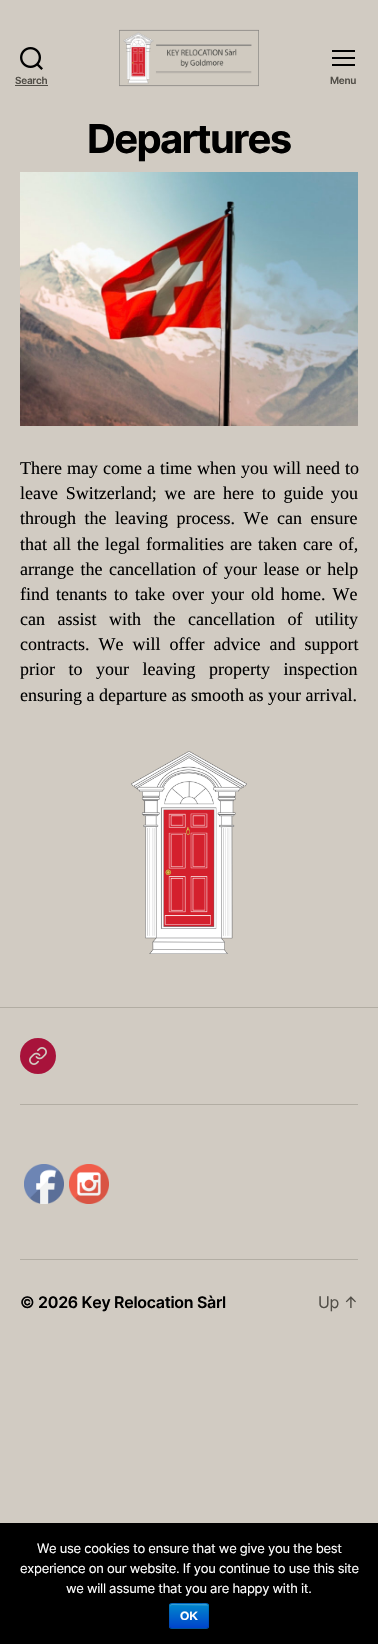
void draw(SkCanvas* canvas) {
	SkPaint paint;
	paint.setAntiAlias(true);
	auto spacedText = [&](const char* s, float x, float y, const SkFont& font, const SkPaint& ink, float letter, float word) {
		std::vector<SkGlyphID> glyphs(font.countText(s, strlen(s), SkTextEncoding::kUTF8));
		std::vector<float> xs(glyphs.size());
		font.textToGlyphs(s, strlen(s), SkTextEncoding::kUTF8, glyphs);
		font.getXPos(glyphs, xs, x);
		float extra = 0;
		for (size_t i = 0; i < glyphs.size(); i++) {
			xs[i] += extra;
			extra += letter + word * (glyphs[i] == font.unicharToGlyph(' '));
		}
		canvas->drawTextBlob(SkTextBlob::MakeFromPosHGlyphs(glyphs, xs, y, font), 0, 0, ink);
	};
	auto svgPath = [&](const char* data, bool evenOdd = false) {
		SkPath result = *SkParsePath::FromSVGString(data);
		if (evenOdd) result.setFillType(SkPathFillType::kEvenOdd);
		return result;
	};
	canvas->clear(0xffd1cbc2);
	canvas->drawImageRect(SkImages::DeferredFromEncodedData(SkData::MakeFromFileName("img1.png")), SkRect::MakeXYWH(20, 47, 23, 23), SkSamplingOptions());
	SkFont f1(fontMgr->matchFamilyStyle("Inter", SkFontStyle(600, SkFontStyle::kNormal_Width, SkFontStyle::kUpright_Slant)), 10);
	f1.setSubpixel(true);
	paint.setColor(0xff514e47);
	spacedText("Search", 15, 84, f1, paint, -0.27, 0);
	canvas->drawRect(SkRect::MakeXYWH(15, 85, 33, 1), paint);
	canvas->drawImageRect(SkImages::DeferredFromEncodedData(SkData::MakeFromFileName("img2.png")), SkRect::MakeXYWH(119, 29, 140, 58), SkSamplingOptions());
	paint.setColor(0xff000000);
	canvas->drawRect(SkRect::MakeXYWH(332, 50, 23, 2), paint);
	canvas->drawRect(SkRect::MakeXYWH(332, 64, 23, 2), paint);
	canvas->drawRect(SkRect::MakeXYWH(332, 57, 23, 2), paint);
	paint.setColor(0xff514e47);
	spacedText("Menu", 330, 84, f1, paint, -0.27, 0);
	SkFont f2(fontMgr->matchFamilyStyle("Inter", SkFontStyle::Bold()), 40);
	f2.setSubpixel(true);
	paint.setColor(0xff000000);
	spacedText("Departures", 87, 153, f2, paint, -1.75, 0);
	canvas->drawImageRect(SkImages::DeferredFromEncodedData(SkData::MakeFromFileName("img3.png")), SkRect::MakeXYWH(20, 172, 338, 254), SkSamplingOptions());
	SkFont f3(fontMgr->matchFamilyStyle("Liberation Serif", SkFontStyle::Normal()), 18);
	f3.setSubpixel(true);
	spacedText("There may come a time when you will need to", 20, 474, f3, paint, 0, 0.5);
	spacedText("leave Switzerland; we are here to guide you", 20, 499, f3, paint, 0, 3.25);
	spacedText("through the leaving process. We can ensure", 20, 524, f3, paint, 0, 4);
	spacedText("that all the legal formalities are taken care of,", 20, 550, f3, paint, 0, 1.5);
	spacedText("arrange the cancellation of your lease or help", 20, 575, f3, paint, 0, 2);
	spacedText("find tenants to take over your old home. We", 20, 600, f3, paint, 0, 2.5);
	spacedText("can assist with the cancellation of utility", 20, 625, f3, paint, 0, 8);
	spacedText("contracts. We will offer advice and support", 20, 650, f3, paint, 0, 4.5);
	spacedText("prior to your leaving property inspection", 20, 675, f3, paint, 0, 9);
	canvas->drawString("ensuring a departure as smooth as your arrival.", 20, 701, f3, paint);
	canvas->drawImageRect(SkImages::DeferredFromEncodedData(SkData::MakeFromFileName("img4.png")), SkRect::MakeXYWH(131, 751, 116, 203), SkSamplingOptions());
	paint.setColor(0xffb2ada3);
	canvas->drawRect(SkRect::MakeXYWH(0, 1007, 378, 1), paint);
	canvas->drawRect(SkRect::MakeXYWH(20, 1104, 338, 1), paint);
	paint.setColor(0xffa8133b);
	canvas->drawCircle(38, 1056, 18, paint);
	canvas->drawImageRect(SkImages::DeferredFromEncodedData(SkData::MakeFromFileName("img5.png")), SkRect::MakeXYWH(29, 1047, 18, 18), SkSamplingOptions());
	paint.setColor(0xffb2ada3);
	canvas->drawRect(SkRect::MakeXYWH(20, 1259, 338, 1), paint);
	canvas->drawImageRect(SkImages::DeferredFromEncodedData(SkData::MakeFromFileName("img6.png")), SkRect::MakeXYWH(24, 1164, 40, 40), SkSamplingOptions());
	canvas->drawImageRect(SkImages::DeferredFromEncodedData(SkData::MakeFromFileName("img7.png")), SkRect::MakeXYWH(69, 1164, 40, 40), SkSamplingOptions());
	SkFont f4(fontMgr->matchFamilyStyle("Inter", SkFontStyle(600, SkFontStyle::kNormal_Width, SkFontStyle::kUpright_Slant)), 16);
	f4.setSubpixel(true);
	paint.setColor(0xff000000);
	spacedText("© 2026 Key Relocation Sàrl", 20, 1308, f4, paint, -0.27, 0);
	SkFont f5(fontMgr->matchFamilyStyle("Inter", SkFontStyle::Normal()), 16);
	f5.setSubpixel(true);
	paint.setColor(0xff514e47);
	spacedText("Up ↑", 318, 1308, f5, paint, -0.27, 0);
	paint.setColor(0xff000000);
	canvas->drawRect(SkRect::MakeXYWH(0, 1523, 378, 121), paint);
	SkFont f6(fontMgr->matchFamilyStyle("Inter", SkFontStyle::Normal()), 13);
	f6.setSubpixel(true);
	paint.setColor(0xffffffff);
	spacedText("We use cookies to ensure that we give you the best", 37, 1553, f6, paint, -0.27, 0);
	spacedText("experience on our website. If you continue to use this site", 20, 1573, f6, paint, -0.27, 0);
	spacedText("we will assume that you are happy with it.", 66, 1593, f6, paint, -0.27, 0);
	paint.setColor(0xff006dcc);
	canvas->drawRoundRect(SkRect::MakeXYWH(169, 1603, 40, 26), 3, 3, paint);
	canvas->save();
	canvas->clipPath(svgPath("M172 1603H206C207.5 1603 209 1604.5 209 1606V1626C209 1627.5 207.5 1629 206 1629H172C170.5 1629 169 1627.5 169 1626V1606C169 1604.5 170.5 1603 172 1603Z"), true);
	{
		const SkColor colors[] = {0xff0088cc, 0xff0044cc};
		const float stops[] = {0, 1};
		const SkPoint ends[] = {{189, 1604}, {189, 1628}};
		paint.setShader(SkGradientShader::MakeLinear(ends, colors, stops, 2, SkTileMode::kClamp));
		paint.setAlpha(255);
	}
	canvas->drawRect(SkRect::MakeXYWH(169, 1604, 40, 24), paint);
	canvas->restore();
	paint.setShader(nullptr);
	paint.setColor(0x33ffffff);
	canvas->drawPath(svgPath("M172 1605L206.5 1605.5C207 1605.5 207.5 1605.5 208 1606.5C208 1602.5 202 1604 200.5 1604H177.5C172.5 1604 170 1602.5 170 1607.5C170 1606 171 1605 172 1605ZM170 1626.5V1626Z", true), paint);
	paint.setStroke(true);
	paint.setStrokeWidth(1);
	paint.setColor(0x40000000);
	canvas->drawPath(svgPath("M208 1628L206 1628.5H172L170 1628"), paint);
	paint.setColor(0x1a000000);
	canvas->drawPath(svgPath("M170 1628C170 1627.5 169.5 1626.5 169.5 1626V1606C169.5 1605.5 170 1604.5 170 1604C170.5 1604 171.5 1603.5 172 1603.5H206C206.5 1603.5 207.5 1604 208 1604C208 1604.5 208.5 1605.5 208.5 1606V1626C208.5 1626.5 208 1627.5 208 1628"), paint);
	SkFont f7(fontMgr->matchFamilyStyle("Liberation Sans", SkFontStyle::Bold()), 12);
	f7.setSubpixel(true);
	paint.setStroke(false);
	paint.setColor(0xffffffff);
	canvas->drawString("OK", 180, 1620, f7, paint);
}
